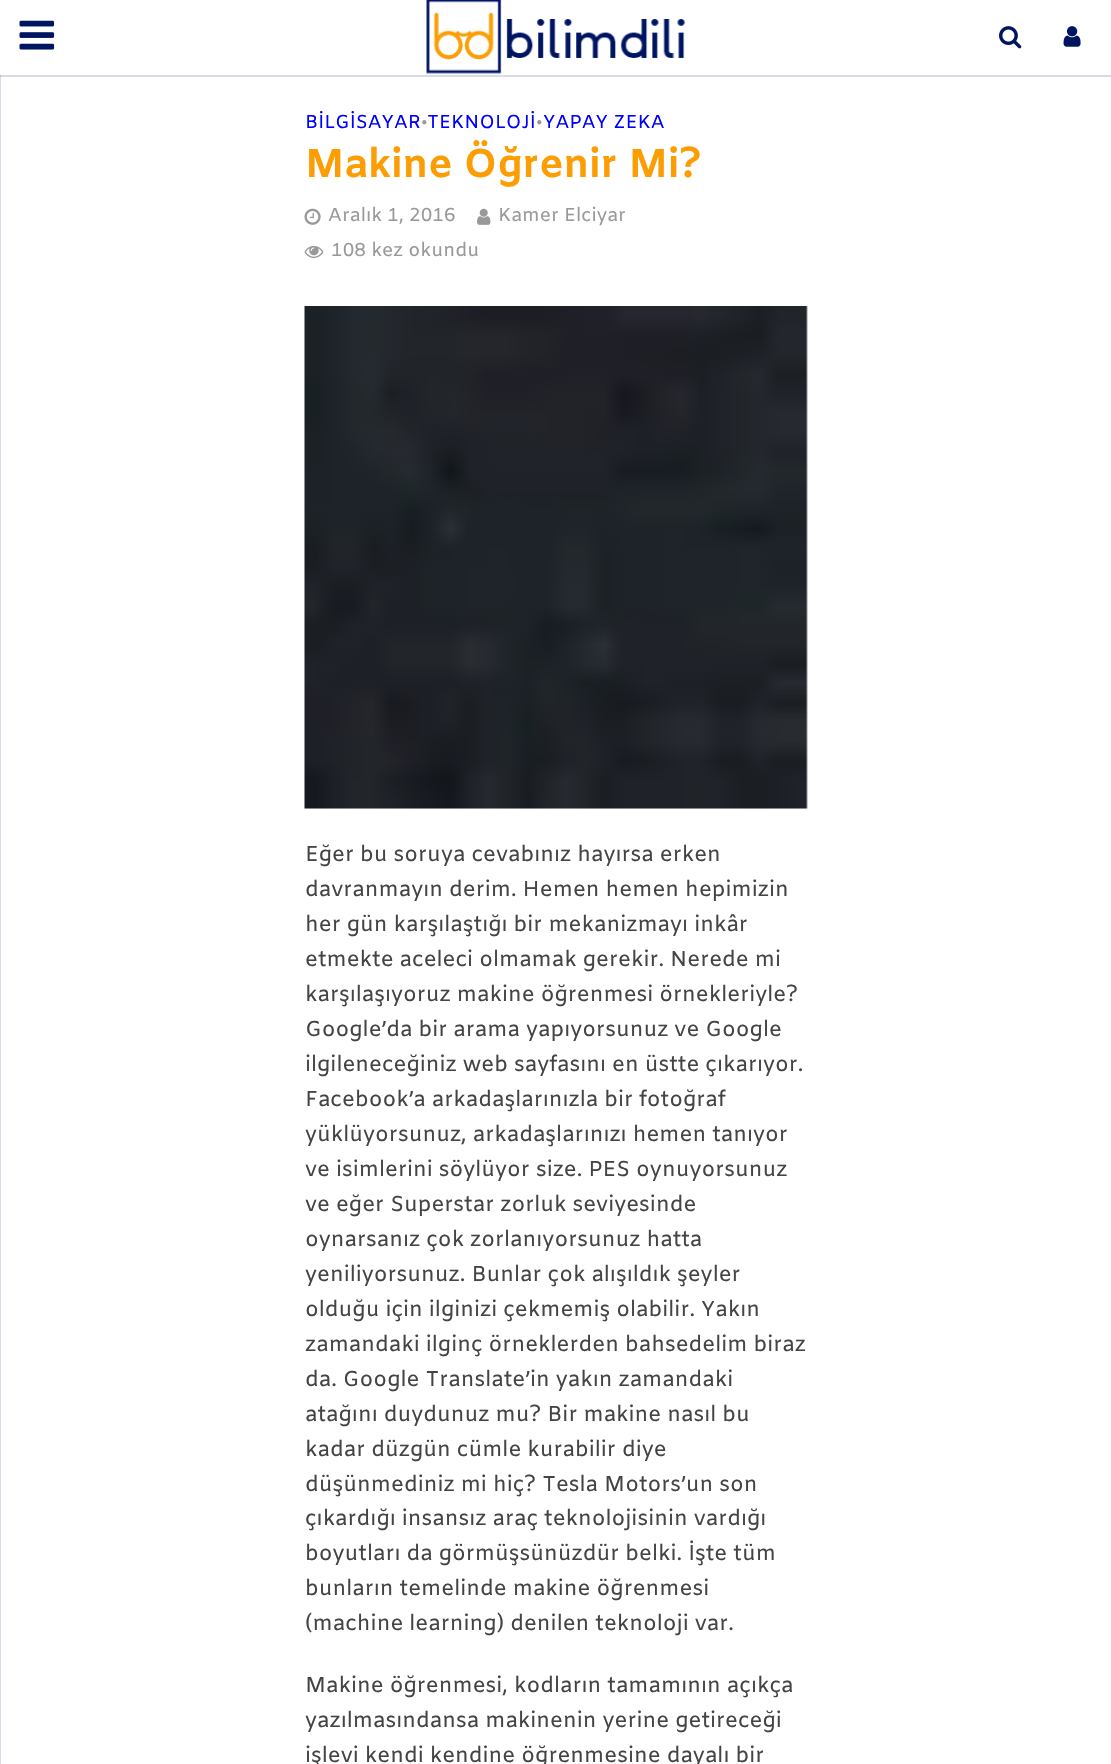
void draw(SkCanvas* canvas) {
	SkPaint paint;
	paint.setAntiAlias(true);
	auto svgPath = [&](const char* data, bool evenOdd = false) {
		SkPath result = *SkParsePath::FromSVGString(data);
		if (evenOdd) result.setFillType(SkPathFillType::kEvenOdd);
		return result;
	};
	canvas->clear(0xffffffff);
	paint.setColor(0xffd9dce7);
	canvas->drawRect(SkRect::MakeXYWH(0, 75, 1, 1689), paint);
	paint.setColor(0x26001562);
	canvas->drawPath(svgPath("M0-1V0H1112V75H0V77H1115V-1Z"), paint);
	canvas->drawImageRect(SkImages::DeferredFromEncodedData(SkData::MakeFromFileName("img1.png")), SkRect::MakeXYWH(19, 20, 36, 30), SkSamplingOptions());
	canvas->drawImageRect(SkImages::DeferredFromEncodedData(SkData::MakeFromFileName("img2.png")), SkRect::MakeXYWH(426, 0, 260, 74), SkSamplingOptions());
	canvas->drawImageRect(SkImages::DeferredFromEncodedData(SkData::MakeFromFileName("img3.png")), SkRect::MakeXYWH(999, 26, 23, 23), SkSamplingOptions());
	canvas->drawImageRect(SkImages::DeferredFromEncodedData(SkData::MakeFromFileName("img4.png")), SkRect::MakeXYWH(1063, 26, 18, 21), SkSamplingOptions());
	SkFont f1(fontMgr->matchFamilyStyle("Amiko", SkFontStyle::Normal()), 18.75);
	f1.setSubpixel(true);
	paint.setColor(0xff0000ff);
	canvas->drawString("BİLGİSAYAR", 305, 128, f1, paint);
	paint.setColor(0xff999999);
	canvas->drawString("•", 421, 128, f1, paint);
	paint.setColor(0xff0000ff);
	canvas->drawString("TEKNOLOJİ", 427, 128, f1, paint);
	paint.setColor(0xff999999);
	canvas->drawString("•", 536, 128, f1, paint);
	paint.setColor(0xff0000ff);
	canvas->drawString("YAPAY ZEKA", 543, 128, f1, paint);
	SkFont f2(fontMgr->matchFamilyStyle("Amiko", SkFontStyle::Bold()), 40.25);
	f2.setSubpixel(true);
	paint.setColor(0xfffc9e03);
	canvas->drawString("Makine Öğrenir Mi?", 305, 177, f2, paint);
	canvas->drawImageRect(SkImages::DeferredFromEncodedData(SkData::MakeFromFileName("img5.png")), SkRect::MakeXYWH(304, 208, 17, 17), SkSamplingOptions());
	paint.setColor(0xff999999);
	canvas->drawString("Aralık 1, 2016", 328, 221, f1, paint);
	canvas->drawImageRect(SkImages::DeferredFromEncodedData(SkData::MakeFromFileName("img6.png")), SkRect::MakeXYWH(477, 208, 14, 17), SkSamplingOptions());
	canvas->drawString("Kamer Elciyar", 498, 221, f1, paint);
	canvas->drawImageRect(SkImages::DeferredFromEncodedData(SkData::MakeFromFileName("img7.png")), SkRect::MakeXYWH(304, 245, 20, 13), SkSamplingOptions());
	canvas->drawString("108 kez okundu", 331, 256, f1, paint);
	paint.setColor(0xfff3f3f3);
	canvas->drawRect(SkRect::MakeXYWH(305, 306, 502, 503), paint);
	canvas->drawImageRect(SkImages::DeferredFromEncodedData(SkData::MakeFromFileName("img8.png")), SkRect::MakeXYWH(304, 306, 504, 503), SkSamplingOptions());
	SkFont f3(fontMgr->matchFamilyStyle("Amiko", SkFontStyle::Normal()), 21.5);
	f3.setSubpixel(true);
	paint.setColor(0xff444444);
	canvas->drawString("Eğer bu soruya cevabınız hayırsa erken", 305, 861, f3, paint);
	canvas->drawString("davranmayın derim. Hemen hemen hepimizin", 305, 896, f3, paint);
	canvas->drawString("her gün karşılaştığı bir mekanizmayı inkâr", 305, 931, f3, paint);
	canvas->drawString("etmekte aceleci olmamak gerekir. Nerede mi", 305, 966, f3, paint);
	canvas->drawString("karşılaşıyoruz makine öğrenmesi örnekleriyle?", 305, 1001, f3, paint);
	canvas->drawString("Google’da bir arama yapıyorsunuz ve Google", 305, 1036, f3, paint);
	canvas->drawString("ilgileneceğiniz web sayfasını en üstte çıkarıyor.", 305, 1071, f3, paint);
	canvas->drawString("Facebook’a arkadaşlarınızla bir fotoğraf", 305, 1106, f3, paint);
	canvas->drawString("yüklüyorsunuz, arkadaşlarınızı hemen tanıyor", 305, 1141, f3, paint);
	canvas->drawString("ve isimlerini söylüyor size. PES oynuyorsunuz", 305, 1176, f3, paint);
	canvas->drawString("ve eğer Superstar zorluk seviyesinde", 305, 1211, f3, paint);
	canvas->drawString("oynarsanız çok zorlanıyorsunuz hatta", 305, 1246, f3, paint);
	canvas->drawString("yeniliyorsunuz. Bunlar çok alışıldık şeyler", 305, 1281, f3, paint);
	canvas->drawString("olduğu için ilginizi çekmemiş olabilir. Yakın", 305, 1316, f3, paint);
	canvas->drawString("zamandaki ilginç örneklerden bahsedelim biraz", 305, 1351, f3, paint);
	canvas->drawString("da. Google Translate’in yakın zamandaki", 305, 1386, f3, paint);
	canvas->drawString("atağını duydunuz mu? Bir makine nasıl bu", 305, 1421, f3, paint);
	canvas->drawString("kadar düzgün cümle kurabilir diye", 305, 1456, f3, paint);
	canvas->drawString("düşünmediniz mi hiç? Tesla Motors’un son", 305, 1491, f3, paint);
	canvas->drawString("çıkardığı insansız araç teknolojisinin vardığı", 305, 1525, f3, paint);
	canvas->drawString("boyutları da görmüşsünüzdür belki. İşte tüm", 305, 1560, f3, paint);
	canvas->drawString("bunların temelinde makine öğrenmesi", 305, 1595, f3, paint);
	canvas->drawString("(machine learning) denilen teknoloji var.", 305, 1630, f3, paint);
	canvas->drawString("Makine öğrenmesi, kodların tamamının açıkça", 305, 1692, f3, paint);
	canvas->drawString("yazılmasındansa makinenin yerine getireceği", 305, 1727, f3, paint);
	canvas->drawString("işlevi kendi kendine öğrenmesine dayalı bir", 305, 1762, f3, paint);
}
